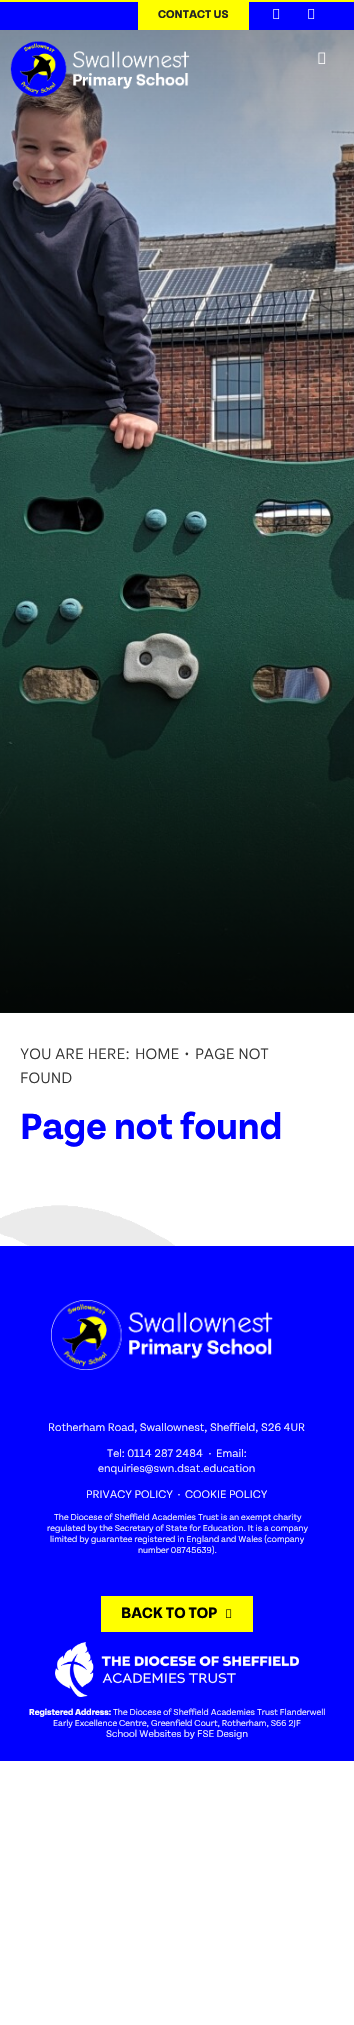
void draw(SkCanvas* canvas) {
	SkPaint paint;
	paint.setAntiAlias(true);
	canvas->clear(0xffffffff);
	paint.setColor(0xffffff00);
	canvas->drawRect(SkRect::MakeXYWH(0, 0, 354, 2), paint);
	paint.setColor(0xff0000ff);
	canvas->drawRect(SkRect::MakeXYWH(0, 2, 354, 28), paint);
	paint.setColor(0xffffff00);
	canvas->drawRect(SkRect::MakeXYWH(138, 2, 111, 28), paint);
	SkFont f1(fontMgr->matchFamilyStyle("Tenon", SkFontStyle::Bold()), 12);
	f1.setSubpixel(true);
	paint.setColor(0xff252525);
	canvas->drawString("CONTACT US", 158, 18, f1, paint);
	canvas->drawImageRect(SkImages::DeferredFromEncodedData(SkData::MakeFromFileName("img1.png")), SkRect::MakeXYWH(273, 9, 7, 10), SkSamplingOptions());
	canvas->drawImageRect(SkImages::DeferredFromEncodedData(SkData::MakeFromFileName("img1.png")), SkRect::MakeXYWH(308, 9, 7, 10), SkSamplingOptions());
	canvas->drawImageRect(SkImages::DeferredFromEncodedData(SkData::MakeFromFileName("img4.png")), SkRect::MakeXYWH(0, 30, 354, 983), SkSamplingOptions());
	canvas->drawImageRect(SkImages::DeferredFromEncodedData(SkData::MakeFromFileName("img2.png")), SkRect::MakeXYWH(10, 41, 180, 57), SkSamplingOptions());
	canvas->drawImageRect(SkImages::DeferredFromEncodedData(SkData::MakeFromFileName("img3.png")), SkRect::MakeXYWH(318, 52, 8, 12), SkSamplingOptions());
	SkFont f2(fontMgr->matchFamilyStyle("Tenon", SkFontStyle(300, SkFontStyle::kNormal_Width, SkFontStyle::kUpright_Slant)), 16);
	f2.setSubpixel(true);
	paint.setColor(0xff333333);
	canvas->drawString("YOU ARE HERE:", 20, 1059, f2, paint);
	canvas->drawString("HOME", 135, 1059, f2, paint);
	canvas->drawString("•", 184, 1059, f2, paint);
	canvas->drawString("PAGE NOT", 195, 1059, f2, paint);
	canvas->drawString("FOUND", 20, 1083, f2, paint);
	SkFont f3(fontMgr->matchFamilyStyle("Tenon", SkFontStyle::Bold()), 38.75);
	f3.setSubpixel(true);
	paint.setColor(0xff0000ff);
	canvas->drawString("Page not found", 20, 1139, f3, paint);
	canvas->drawImageRect(SkImages::DeferredFromEncodedData(SkData::MakeFromFileName("img5.png")), SkRect::MakeXYWH(0, 1205, 175, 41), SkSamplingOptions());
	canvas->drawRect(SkRect::MakeXYWH(0, 1246, 354, 515), paint);
	canvas->drawImageRect(SkImages::DeferredFromEncodedData(SkData::MakeFromFileName("img6.png")), SkRect::MakeXYWH(51, 1300, 222, 70), SkSamplingOptions());
	SkFont f4(fontMgr->matchFamilyStyle("Tenon", SkFontStyle(300, SkFontStyle::kNormal_Width, SkFontStyle::kUpright_Slant)), 11.6);
	f4.setSubpixel(true);
	paint.setColor(0xffffffff);
	canvas->drawString("Rotherham Road, Swallownest, Sheffield, S26 4UR", 48, 1431, f4, paint);
	canvas->drawString("Tel: 0114 287 2484", 107, 1457, f4, paint);
	canvas->drawString("·", 208, 1457, f4, paint);
	canvas->drawString("Email:", 216, 1457, f4, paint);
	canvas->drawString("enquiries@swn.dsat.education", 98, 1472, f4, paint);
	canvas->drawString("PRIVACY POLICY", 86, 1498, f4, paint);
	canvas->drawString("·", 177, 1498, f4, paint);
	canvas->drawString("COOKIE POLICY", 185, 1498, f4, paint);
	SkFont f5(fontMgr->matchFamilyStyle("Tenon", SkFontStyle(300, SkFontStyle::kNormal_Width, SkFontStyle::kUpright_Slant)), 9.05);
	f5.setSubpixel(true);
	canvas->drawString("The Diocese of Sheffield Academies Trust is an exempt charity", 54, 1520, f5, paint);
	canvas->drawString("regulated by the Secretary of State for Education. It is a company", 47, 1531, f5, paint);
	canvas->drawString("limited by guarantee registered in England and Wales (company", 50, 1542, f5, paint);
	canvas->drawString("number 08745639).", 138, 1553, f5, paint);
	paint.setColor(0xffffff00);
	canvas->drawRect(SkRect::MakeXYWH(101, 1596, 152, 36), paint);
	SkFont f6(fontMgr->matchFamilyStyle("Tenon", SkFontStyle::Bold()), 16);
	f6.setSubpixel(true);
	paint.setColor(0xff000000);
	canvas->drawString("BACK TO TOP", 121, 1618, f6, paint);
	canvas->drawImageRect(SkImages::DeferredFromEncodedData(SkData::MakeFromFileName("img7.png")), SkRect::MakeXYWH(226, 1609, 6, 9), SkSamplingOptions());
	canvas->drawImageRect(SkImages::DeferredFromEncodedData(SkData::MakeFromFileName("img8.png")), SkRect::MakeXYWH(55, 1642, 244, 55), SkSamplingOptions());
	SkFont f7(fontMgr->matchFamilyStyle("Tenon", SkFontStyle::Bold()), 9.05);
	f7.setSubpixel(true);
	paint.setColor(0xffffffff);
	canvas->drawString("Registered Address:", 29, 1715, f7, paint);
	canvas->drawString("The Diocese of Sheffield Academies Trust Flanderwell", 113, 1715, f5, paint);
	canvas->drawString("Early Excellence Centre, Greenfield Court, Rotherham, S66 2JF", 53, 1726, f5, paint);
	SkFont f8(fontMgr->matchFamilyStyle("Tenon", SkFontStyle(300, SkFontStyle::kNormal_Width, SkFontStyle::kUpright_Slant)), 10.3);
	f8.setSubpixel(true);
	canvas->drawString("School Websites by FSE Design", 106, 1737, f8, paint);
}
